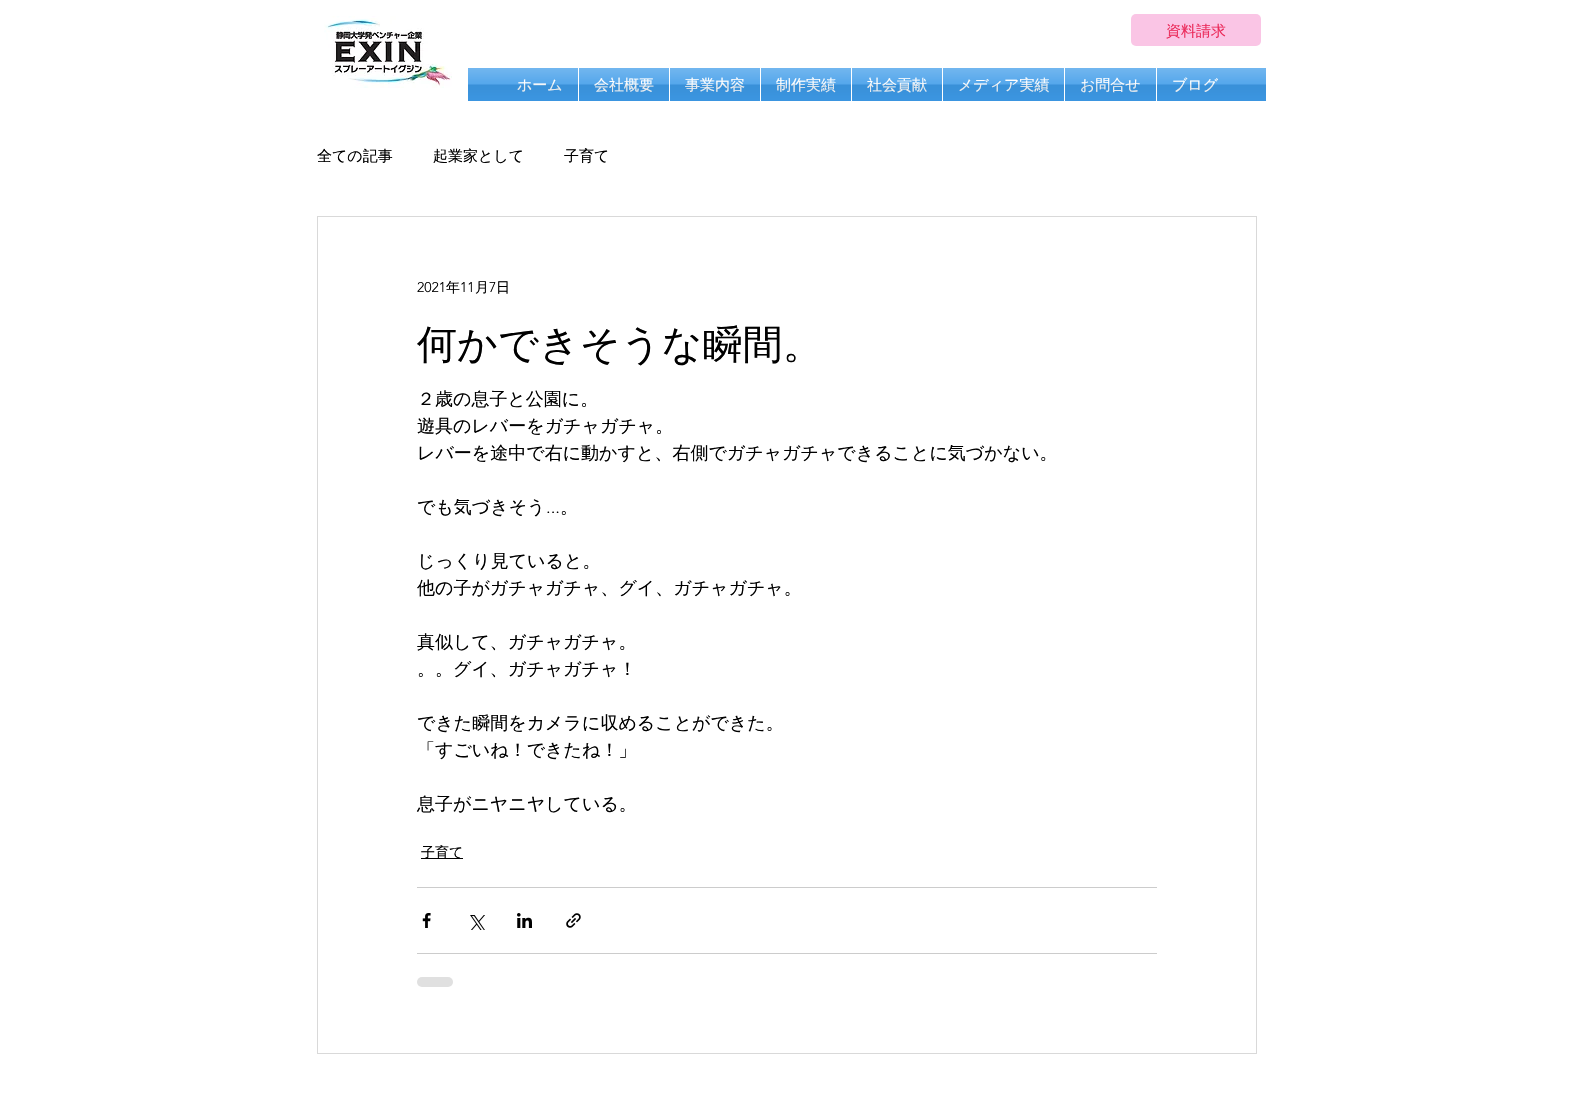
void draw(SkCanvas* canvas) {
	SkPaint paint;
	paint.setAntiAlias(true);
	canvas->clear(0xffffffff);
	canvas->drawImageRect(SkImages::DeferredFromEncodedData(SkData::MakeFromFileName("img1.png")), SkRect::MakeXYWH(324, 16, 128, 72), SkSamplingOptions());
	paint.setColor(0xfffac5e5);
	canvas->drawRoundRect(SkRect::MakeXYWH(1131, 14, 130, 32), 5, 5, paint);
	SkFont f1(fontMgr->matchFamilyStyle("WenQuanYi Zen Hei", SkFontStyle(500, SkFontStyle::kNormal_Width, SkFontStyle::kUpright_Slant)), 15);
	f1.setSubpixel(true);
	paint.setColor(0xffeb2a5a);
	canvas->drawString("資料請求", 1166, 36, f1, paint);
	paint.setColor(0xff3d9be9);
	canvas->drawRect(SkRect::MakeXYWH(468, 68, 798, 33), paint);
	canvas->drawImageRect(SkImages::DeferredFromEncodedData(SkData::MakeFromFileName("img2.png")), SkRect::MakeXYWH(468, 68, 798, 33), SkSamplingOptions());
	canvas->drawRect(SkRect::MakeXYWH(502, 68, 76, 33), paint);
	paint.setColor(0xffffffff);
	canvas->drawString("ホーム", 517, 90, f1, paint);
	canvas->drawImageRect(SkImages::DeferredFromEncodedData(SkData::MakeFromFileName("img3.png")), SkRect::MakeXYWH(502, 68, 76, 33), SkSamplingOptions());
	paint.setColor(0xff3d9be9);
	canvas->drawRect(SkRect::MakeXYWH(579, 68, 90, 33), paint);
	paint.setColor(0xffffffff);
	canvas->drawRect(SkRect::MakeXYWH(578, 68, 1, 33), paint);
	canvas->drawString("会社概要", 594, 90, f1, paint);
	canvas->drawImageRect(SkImages::DeferredFromEncodedData(SkData::MakeFromFileName("img4.png")), SkRect::MakeXYWH(579, 68, 90, 33), SkSamplingOptions());
	paint.setColor(0xff3d9be9);
	canvas->drawRect(SkRect::MakeXYWH(670, 68, 90, 33), paint);
	paint.setColor(0xffffffff);
	canvas->drawRect(SkRect::MakeXYWH(669, 68, 1, 33), paint);
	canvas->drawString("事業内容", 685, 90, f1, paint);
	canvas->drawImageRect(SkImages::DeferredFromEncodedData(SkData::MakeFromFileName("img5.png")), SkRect::MakeXYWH(670, 68, 90, 33), SkSamplingOptions());
	paint.setColor(0xff3d9be9);
	canvas->drawRect(SkRect::MakeXYWH(761, 68, 90, 33), paint);
	paint.setColor(0xffffffff);
	canvas->drawRect(SkRect::MakeXYWH(760, 68, 1, 33), paint);
	canvas->drawString("制作実績", 776, 90, f1, paint);
	canvas->drawImageRect(SkImages::DeferredFromEncodedData(SkData::MakeFromFileName("img6.png")), SkRect::MakeXYWH(761, 68, 90, 33), SkSamplingOptions());
	paint.setColor(0xff3d9be9);
	canvas->drawRect(SkRect::MakeXYWH(852, 68, 90, 33), paint);
	paint.setColor(0xffffffff);
	canvas->drawRect(SkRect::MakeXYWH(851, 68, 1, 33), paint);
	canvas->drawString("社会貢献", 867, 90, f1, paint);
	canvas->drawImageRect(SkImages::DeferredFromEncodedData(SkData::MakeFromFileName("img7.png")), SkRect::MakeXYWH(852, 68, 90, 33), SkSamplingOptions());
	paint.setColor(0xff3d9be9);
	canvas->drawRect(SkRect::MakeXYWH(943, 68, 121, 33), paint);
	paint.setColor(0xffffffff);
	canvas->drawRect(SkRect::MakeXYWH(942, 68, 1, 33), paint);
	canvas->drawString("メディア実績", 958, 90, f1, paint);
	canvas->drawImageRect(SkImages::DeferredFromEncodedData(SkData::MakeFromFileName("img8.png")), SkRect::MakeXYWH(943, 68, 121, 33), SkSamplingOptions());
	paint.setColor(0xff3d9be9);
	canvas->drawRect(SkRect::MakeXYWH(1065, 68, 91, 33), paint);
	paint.setColor(0xffffffff);
	canvas->drawRect(SkRect::MakeXYWH(1064, 68, 1, 33), paint);
	canvas->drawString("お問合せ", 1080, 90, f1, paint);
	canvas->drawImageRect(SkImages::DeferredFromEncodedData(SkData::MakeFromFileName("img9.png")), SkRect::MakeXYWH(1065, 68, 91, 33), SkSamplingOptions());
	paint.setColor(0xff3d9be9);
	canvas->drawRect(SkRect::MakeXYWH(1157, 68, 76, 33), paint);
	paint.setColor(0xffffffff);
	canvas->drawRect(SkRect::MakeXYWH(1156, 68, 1, 33), paint);
	canvas->drawString("ブログ", 1172, 90, f1, paint);
	canvas->drawImageRect(SkImages::DeferredFromEncodedData(SkData::MakeFromFileName("img10.png")), SkRect::MakeXYWH(1157, 68, 76, 33), SkSamplingOptions());
	paint.setColor(0xff000000);
	canvas->drawString("全ての記事", 317, 161, f1, paint);
	canvas->drawString("起業家として", 433, 161, f1, paint);
	canvas->drawString("子育て", 564, 161, f1, paint);
	paint.setStroke(true);
	paint.setStrokeWidth(1);
	paint.setColor(0xffd9d9d9);
	canvas->drawRect(SkRect::MakeXYWH(317.5, 216.5, 939, 837), paint);
	SkFont f2(fontMgr->matchFamilyStyle("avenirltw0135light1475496", SkFontStyle(300, SkFontStyle::kNormal_Width, SkFontStyle::kUpright_Slant)), 14);
	f2.setSubpixel(true);
	paint.setStroke(false);
	paint.setColor(0xff000000);
	canvas->drawString("2021", 417, 292, f2, paint);
	SkFont f3(fontMgr->matchFamilyStyle("WenQuanYi Zen Hei", SkFontStyle(500, SkFontStyle::kNormal_Width, SkFontStyle::kUpright_Slant)), 14);
	f3.setSubpixel(true);
	canvas->drawString("年", 446, 292, f3, paint);
	canvas->drawString("11", 460, 292, f2, paint);
	canvas->drawString("月", 475, 292, f3, paint);
	canvas->drawString("7", 489, 292, f2, paint);
	canvas->drawString("日", 496, 292, f3, paint);
	SkFont f4(fontMgr->matchFamilyStyle("WenQuanYi Zen Hei", SkFontStyle(500, SkFontStyle::kNormal_Width, SkFontStyle::kUpright_Slant)), 40);
	f4.setSubpixel(true);
	canvas->drawString("何かできそうな瞬間。", 417, 358, f4, paint);
	SkFont f5(fontMgr->matchFamilyStyle("WenQuanYi Zen Hei", SkFontStyle(500, SkFontStyle::kNormal_Width, SkFontStyle::kUpright_Slant)), 18);
	f5.setSubpixel(true);
	canvas->drawString("２歳の息子と公園に。", 417, 405, f5, paint);
	canvas->drawString("遊具のレバーをガチャガチャ。", 417, 432, f5, paint);
	canvas->drawString("レバーを途中で右に動かすと、右側でガチャガチャできることに気づかない。", 417, 459, f5, paint);
	canvas->drawString("でも気づきそう", 417, 513, f5, paint);
	SkFont f6(fontMgr->matchFamilyStyle("avenirltw0135light1475496", SkFontStyle(300, SkFontStyle::kNormal_Width, SkFontStyle::kUpright_Slant)), 18);
	f6.setSubpixel(true);
	canvas->drawString("...", 546, 513, f6, paint);
	canvas->drawString("。", 560, 513, f5, paint);
	canvas->drawString("じっくり見ていると。", 417, 567, f5, paint);
	canvas->drawString("他の子がガチャガチャ、グイ、ガチャガチャ。", 417, 594, f5, paint);
	canvas->drawString("真似して、ガチャガチャ。", 417, 648, f5, paint);
	canvas->drawString("。。グイ、ガチャガチャ！", 417, 675, f5, paint);
	canvas->drawString("できた瞬間をカメラに収めることができた。", 417, 729, f5, paint);
	canvas->drawString("「すごいね！できたね！」", 417, 756, f5, paint);
	canvas->drawString("息子がニヤニヤしている。", 417, 810, f5, paint);
	canvas->drawRect(SkRect::MakeXYWH(421, 858, 42, 1), paint);
	canvas->drawString("子育て", 421, 857, f3, paint);
	paint.setColor(0xffcccccc);
	canvas->drawRect(SkRect::MakeXYWH(417, 887, 740, 1), paint);
	canvas->drawImageRect(SkImages::DeferredFromEncodedData(SkData::MakeFromFileName("img11.png")), SkRect::MakeXYWH(422, 913, 9, 15), SkSamplingOptions());
	canvas->drawImageRect(SkImages::DeferredFromEncodedData(SkData::MakeFromFileName("img12.png")), SkRect::MakeXYWH(470, 915, 15, 15), SkSamplingOptions());
	canvas->drawImageRect(SkImages::DeferredFromEncodedData(SkData::MakeFromFileName("img13.png")), SkRect::MakeXYWH(517, 913, 15, 15), SkSamplingOptions());
	canvas->drawImageRect(SkImages::DeferredFromEncodedData(SkData::MakeFromFileName("img14.png")), SkRect::MakeXYWH(566, 913, 15, 15), SkSamplingOptions());
	canvas->drawRect(SkRect::MakeXYWH(417, 953, 740, 1), paint);
	paint.setColor(0xffe0e0e0);
	canvas->drawRoundRect(SkRect::MakeXYWH(417, 977, 36, 10), 5, 5, paint);
}
